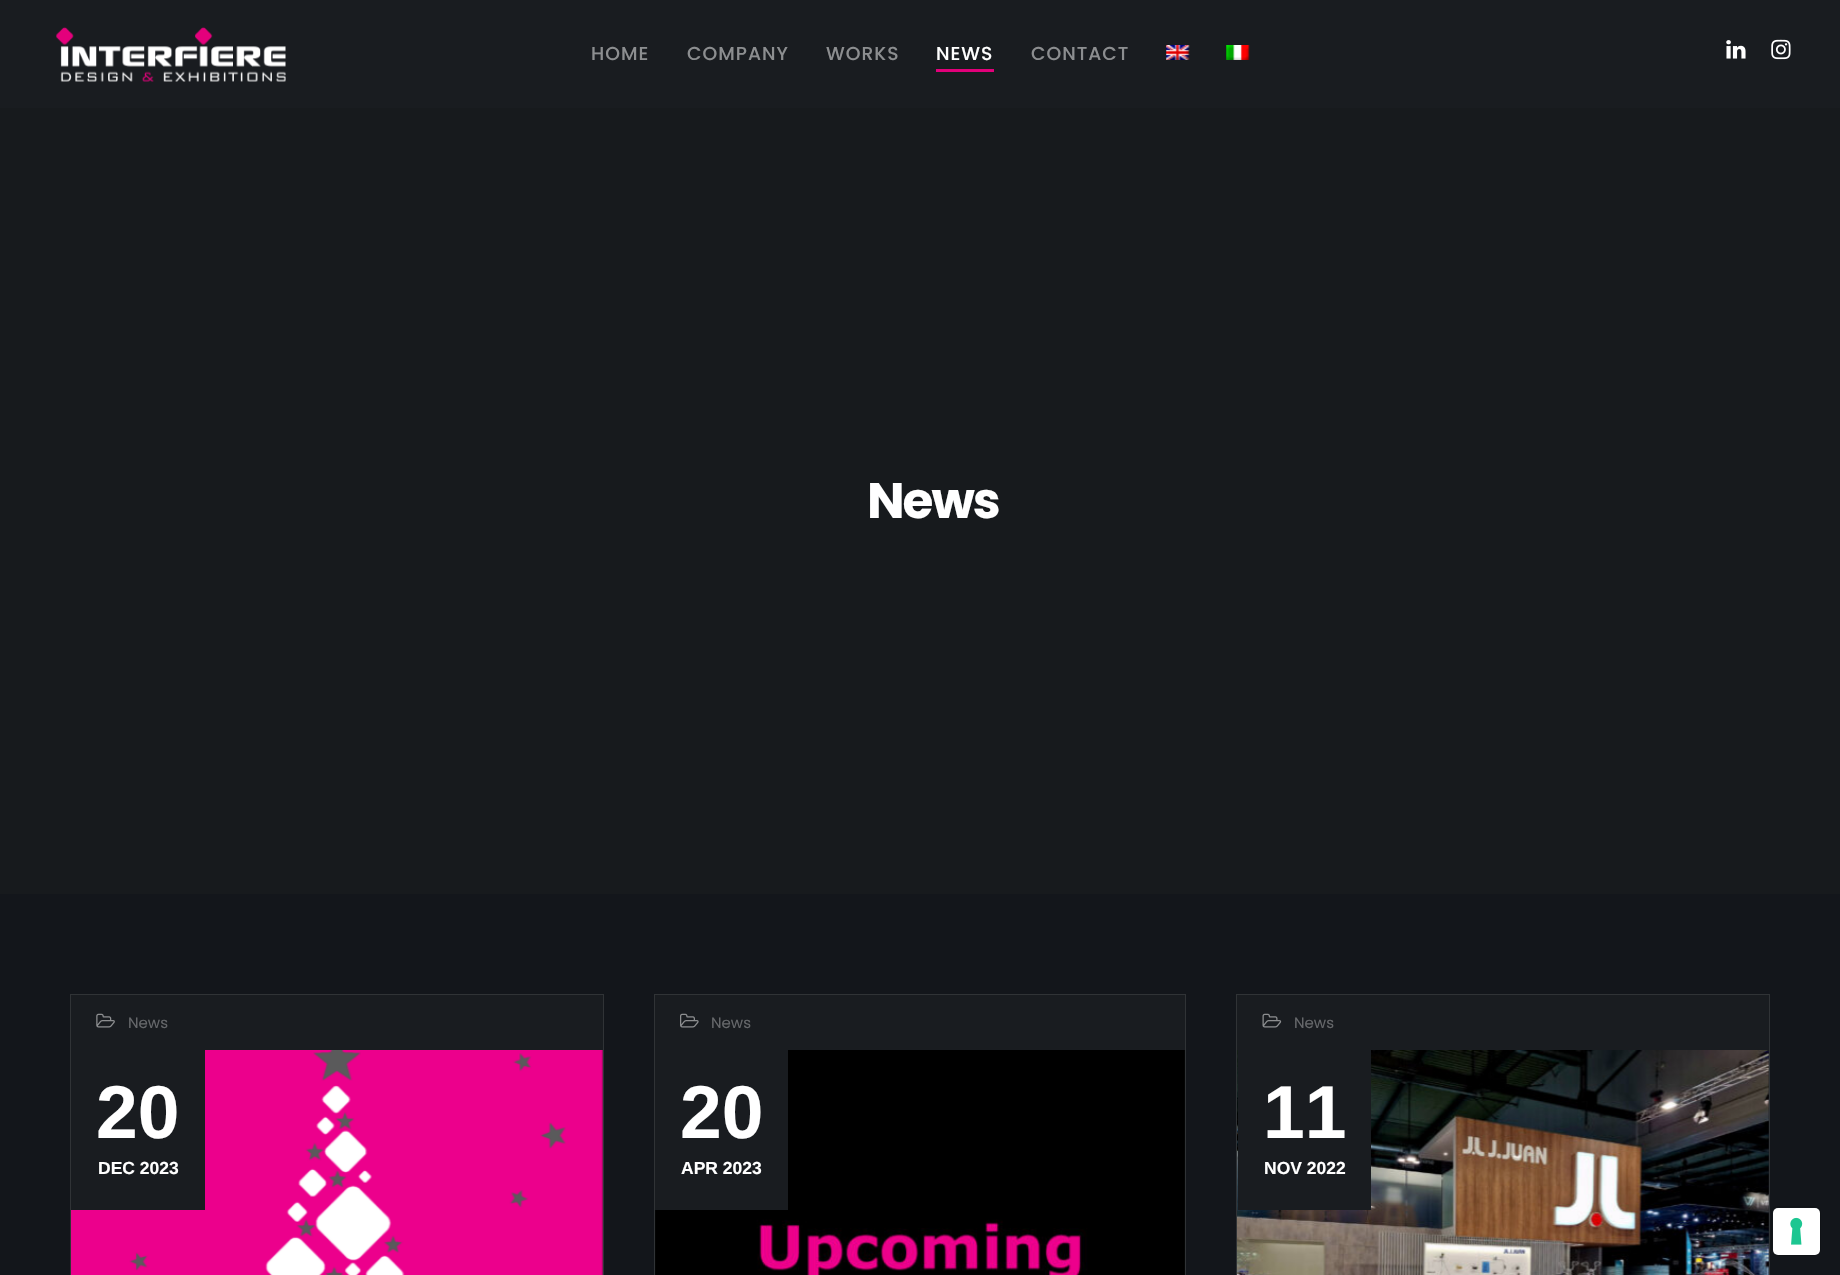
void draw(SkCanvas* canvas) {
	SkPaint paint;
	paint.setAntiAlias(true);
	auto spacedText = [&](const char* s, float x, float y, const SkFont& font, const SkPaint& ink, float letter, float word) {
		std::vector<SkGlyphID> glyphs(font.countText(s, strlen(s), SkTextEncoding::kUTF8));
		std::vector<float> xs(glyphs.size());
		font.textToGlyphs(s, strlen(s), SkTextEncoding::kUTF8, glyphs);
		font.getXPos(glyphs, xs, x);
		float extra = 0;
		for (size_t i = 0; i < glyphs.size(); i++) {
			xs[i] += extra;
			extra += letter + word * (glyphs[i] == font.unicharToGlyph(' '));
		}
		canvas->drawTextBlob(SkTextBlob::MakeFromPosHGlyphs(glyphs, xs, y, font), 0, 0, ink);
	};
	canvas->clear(0xff13161b);
	paint.setColor(0xff191c20);
	canvas->drawRect(SkRect::MakeXYWH(0, 0, 1840, 108), paint);
	canvas->drawImageRect(SkImages::DeferredFromEncodedData(SkData::MakeFromFileName("img1.png")), SkRect::MakeXYWH(56, 27, 230, 55), SkSamplingOptions());
	SkFont f1(fontMgr->matchFamilyStyle("Poppins", SkFontStyle(500, SkFontStyle::kNormal_Width, SkFontStyle::kUpright_Slant)), 18.75);
	f1.setSubpixel(true);
	paint.setColor(0xff8c8e90);
	spacedText("HOME", 591, 60, f1, paint, 1, 0);
	spacedText("COMPANY", 687, 60, f1, paint, 1, 0);
	spacedText("WORKS", 826, 60, f1, paint, 1, 0);
	paint.setColor(0xffffffff);
	spacedText("NEWS", 936, 60, f1, paint, 1, 0);
	paint.setColor(0xffe2007a);
	canvas->drawRect(SkRect::MakeXYWH(936, 69, 58, 3), paint);
	paint.setColor(0xff8c8e90);
	spacedText("CONTACT", 1031, 60, f1, paint, 1, 0);
	canvas->drawImageRect(SkImages::DeferredFromEncodedData(SkData::MakeFromFileName("img2.png")), SkRect::MakeXYWH(1166, 45, 24, 15), SkSamplingOptions());
	canvas->drawImageRect(SkImages::DeferredFromEncodedData(SkData::MakeFromFileName("img3.png")), SkRect::MakeXYWH(1226, 45, 24, 15), SkSamplingOptions());
	canvas->drawImageRect(SkImages::DeferredFromEncodedData(SkData::MakeFromFileName("img4.png")), SkRect::MakeXYWH(1726, 40, 20, 19), SkSamplingOptions());
	canvas->drawImageRect(SkImages::DeferredFromEncodedData(SkData::MakeFromFileName("img5.png")), SkRect::MakeXYWH(1771, 39, 20, 21), SkSamplingOptions());
	paint.setColor(0xff171a1d);
	canvas->drawRect(SkRect::MakeXYWH(0, 108, 1840, 786), paint);
	SkFont f2(fontMgr->matchFamilyStyle("Poppins", SkFontStyle::Bold()), 50);
	f2.setSubpixel(true);
	paint.setColor(0xffffffff);
	spacedText("News", 867, 518, f2, paint, -2, 0);
	paint.setColor(0xff191c20);
	canvas->drawRect(SkRect::MakeXYWH(70.5, 994.5, 533, 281), paint);
	paint.setStroke(true);
	paint.setStrokeWidth(1);
	paint.setColor(0xff303336);
	canvas->drawRect(SkRect::MakeXYWH(70.5, 994.5, 533, 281), paint);
	canvas->drawImageRect(SkImages::DeferredFromEncodedData(SkData::MakeFromFileName("img6.png")), SkRect::MakeXYWH(96, 1013, 19, 15), SkSamplingOptions());
	SkFont f3(fontMgr->matchFamilyStyle("Poppins", SkFontStyle::Normal()), 15);
	f3.setSubpixel(true);
	paint.setStroke(false);
	paint.setColor(0xff65676a);
	canvas->drawString("News", 128, 1028, f3, paint);
	canvas->drawImageRect(SkImages::DeferredFromEncodedData(SkData::MakeFromFileName("img7.png")), SkRect::MakeXYWH(71, 1050, 532, 225), SkSamplingOptions());
	paint.setColor(0xff191c20);
	canvas->drawRect(SkRect::MakeXYWH(71, 1050, 134, 160), paint);
	SkFont f4(fontMgr->matchFamilyStyle("Liberation Sans", SkFontStyle::Bold()), 75);
	f4.setSubpixel(true);
	paint.setColor(0xffffffff);
	canvas->drawString("20", 96, 1138, f4, paint);
	SkFont f5(fontMgr->matchFamilyStyle("Liberation Sans", SkFontStyle::Bold()), 17.5);
	f5.setSubpixel(true);
	canvas->drawString("DEC 2023", 98, 1174, f5, paint);
	paint.setColor(0xff191c20);
	canvas->drawRect(SkRect::MakeXYWH(654.5, 994.5, 531, 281), paint);
	paint.setStroke(true);
	paint.setColor(0xff303336);
	canvas->drawRect(SkRect::MakeXYWH(654.5, 994.5, 531, 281), paint);
	canvas->drawImageRect(SkImages::DeferredFromEncodedData(SkData::MakeFromFileName("img8.png")), SkRect::MakeXYWH(680, 1013, 19, 15), SkSamplingOptions());
	paint.setStroke(false);
	paint.setColor(0xff65676a);
	canvas->drawString("News", 711, 1028, f3, paint);
	canvas->drawImageRect(SkImages::DeferredFromEncodedData(SkData::MakeFromFileName("img9.png")), SkRect::MakeXYWH(655, 1050, 530, 225), SkSamplingOptions());
	paint.setColor(0xff191c20);
	canvas->drawRect(SkRect::MakeXYWH(655, 1050, 133, 160), paint);
	paint.setColor(0xffffffff);
	canvas->drawString("20", 680, 1138, f4, paint);
	canvas->drawString("APR 2023", 681, 1174, f5, paint);
	paint.setColor(0xff191c20);
	canvas->drawRect(SkRect::MakeXYWH(1236.5, 994.5, 533, 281), paint);
	paint.setStroke(true);
	paint.setColor(0xff303336);
	canvas->drawRect(SkRect::MakeXYWH(1236.5, 994.5, 533, 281), paint);
	canvas->drawImageRect(SkImages::DeferredFromEncodedData(SkData::MakeFromFileName("img10.png")), SkRect::MakeXYWH(1262, 1013, 20, 15), SkSamplingOptions());
	paint.setStroke(false);
	paint.setColor(0xff65676a);
	canvas->drawString("News", 1294, 1028, f3, paint);
	canvas->drawImageRect(SkImages::DeferredFromEncodedData(SkData::MakeFromFileName("img11.png")), SkRect::MakeXYWH(1237, 1050, 532, 225), SkSamplingOptions());
	paint.setColor(0xff191c20);
	canvas->drawRect(SkRect::MakeXYWH(1238, 1050, 133, 160), paint);
	paint.setColor(0xffffffff);
	canvas->drawString("11", 1263, 1138, f4, paint);
	canvas->drawString("NOV 2022", 1264, 1174, f5, paint);
	paint.setStroke(true);
	paint.setColor(0xff101317);
	canvas->drawRoundRect(SkRect::MakeXYWH(1771.5, 1206.5, 49, 49), 5.5, 5.5, paint);
	paint.setStroke(false);
	paint.setColor(0xffffffff);
	canvas->drawRoundRect(SkRect::MakeXYWH(1773, 1208, 47, 47), 5, 5, paint);
	canvas->drawImageRect(SkImages::DeferredFromEncodedData(SkData::MakeFromFileName("img12.png")), SkRect::MakeXYWH(1790, 1217, 13, 28), SkSamplingOptions());
}
